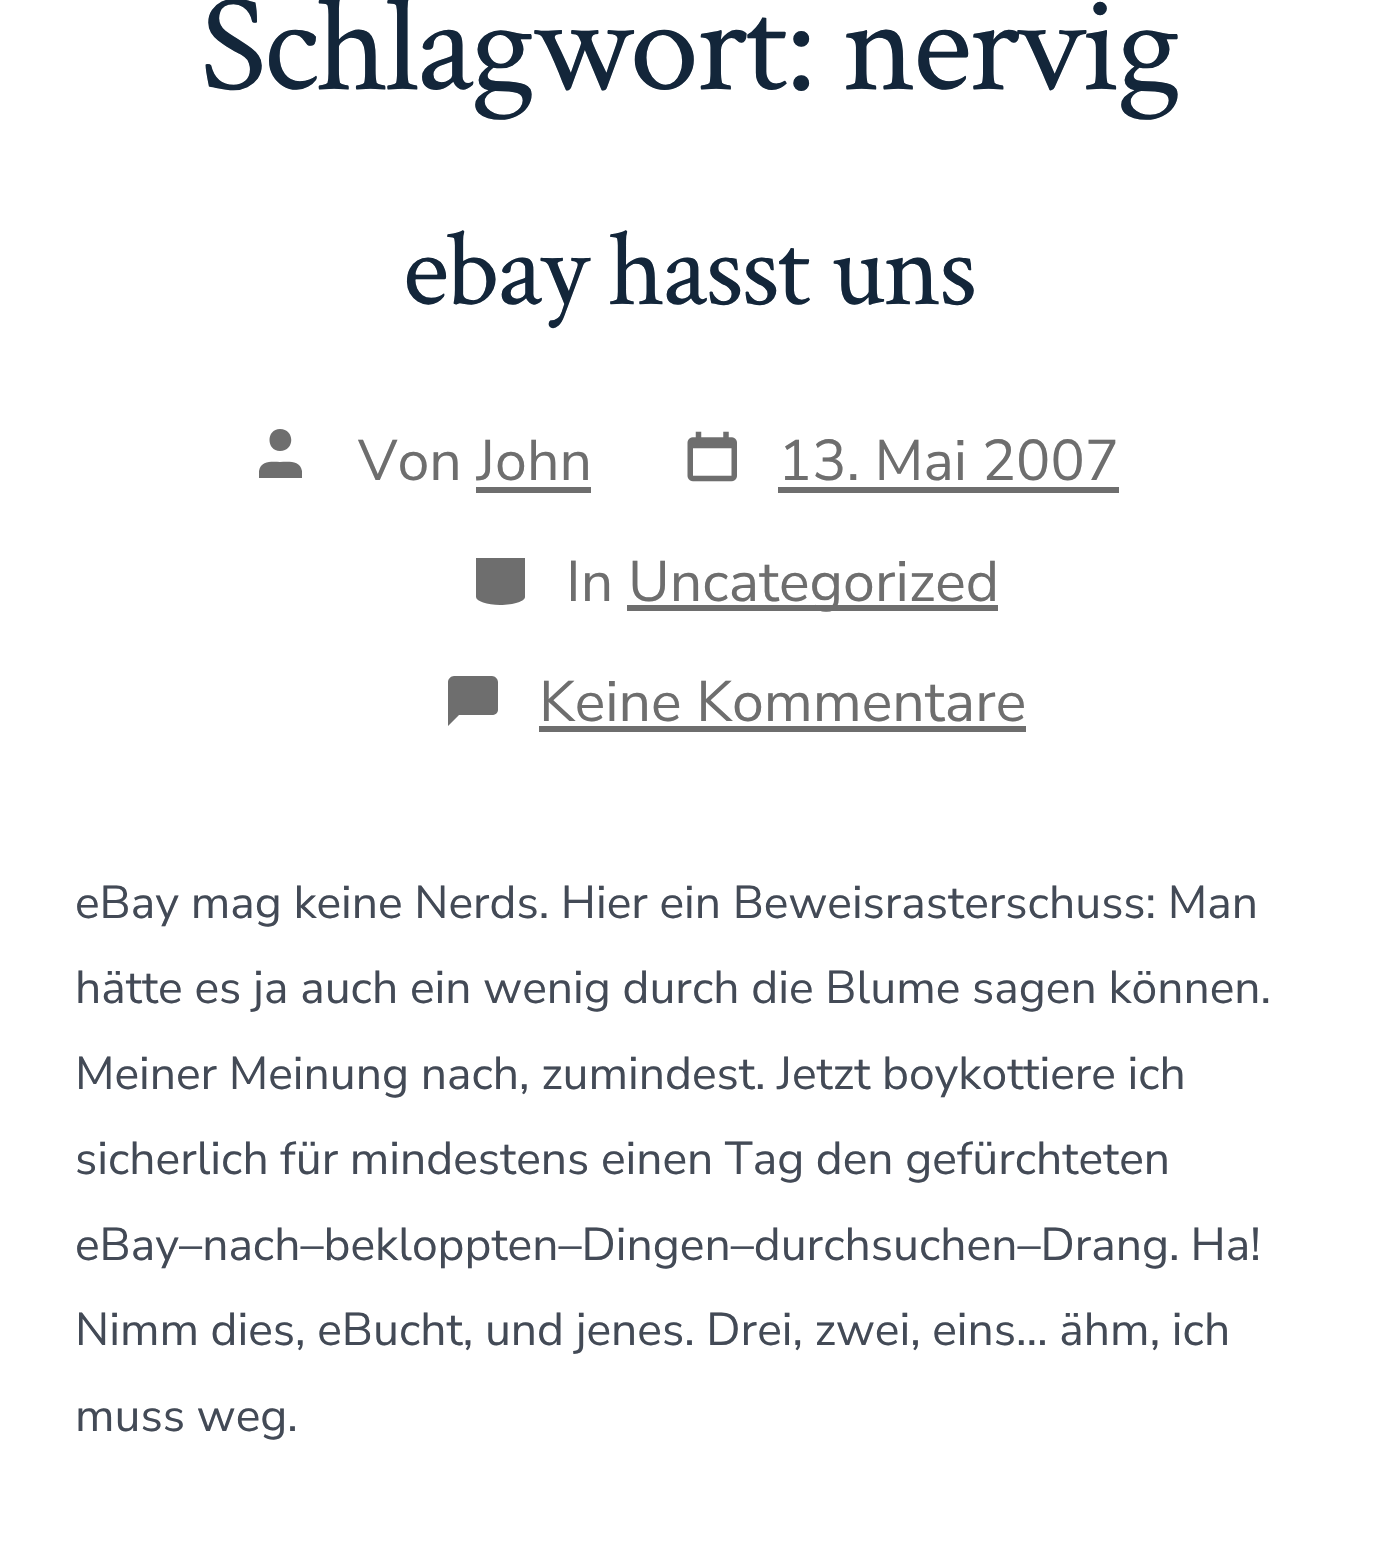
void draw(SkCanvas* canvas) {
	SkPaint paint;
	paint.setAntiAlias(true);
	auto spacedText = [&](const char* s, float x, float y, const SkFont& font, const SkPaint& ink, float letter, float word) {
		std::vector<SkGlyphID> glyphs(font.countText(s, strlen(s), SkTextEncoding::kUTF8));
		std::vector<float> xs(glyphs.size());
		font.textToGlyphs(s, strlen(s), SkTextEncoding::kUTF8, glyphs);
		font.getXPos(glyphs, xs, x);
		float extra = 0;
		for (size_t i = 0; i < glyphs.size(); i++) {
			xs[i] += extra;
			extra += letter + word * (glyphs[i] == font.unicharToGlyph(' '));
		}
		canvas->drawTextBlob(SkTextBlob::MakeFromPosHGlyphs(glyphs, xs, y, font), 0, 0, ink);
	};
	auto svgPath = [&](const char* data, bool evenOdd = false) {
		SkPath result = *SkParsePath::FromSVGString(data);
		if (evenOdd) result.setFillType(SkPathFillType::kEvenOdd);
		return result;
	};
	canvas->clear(0xffffffff);
	SkFont f1(fontMgr->matchFamilyStyle("Crimson Text", SkFontStyle::Normal()), 139);
	f1.setSubpixel(true);
	paint.setColor(0xff13263a);
	spacedText("Schlagwort: nervig", 200, 89, f1, paint, -2.75, 0);
	SkFont f2(fontMgr->matchFamilyStyle("Crimson Text", SkFontStyle::Normal()), 109);
	f2.setSubpixel(true);
	spacedText("ebay hasst uns", 403, 304, f2, paint, -2.25, 0);
	canvas->save();
	canvas->clipRect(SkRect::MakeXYWH(259, 429, 66, 66));
	paint.setColor(0xff6e6e6e);
	canvas->drawPath(svgPath("M302 478H258L259 471C261 460 273 462 280 462C288 462 300 460 302 471ZM280 451C266 451 266 429 280 429C295 429 295 451 280 451Z"), paint);
	canvas->restore();
	SkFont f3(fontMgr->matchFamilyStyle("Nunito Sans", SkFontStyle::Normal()), 57.25);
	f3.setSubpixel(true);
	canvas->drawString("Von John", 358, 480, f3, paint);
	canvas->drawRect(SkRect::MakeXYWH(476, 487, 115, 6), paint);
	canvas->drawImageRect(SkImages::DeferredFromEncodedData(SkData::MakeFromFileName("img1.png")), SkRect::MakeXYWH(687, 431, 50, 51), SkSamplingOptions());
	canvas->drawString("13. Mai 2007", 778, 480, f3, paint);
	canvas->drawRect(SkRect::MakeXYWH(778, 487, 341, 6), paint);
	canvas->drawPath(svgPath("M476 558V597C476 601 487 605 500 605C514 605 525 601 525 597V558"), paint);
	canvas->drawString("In", 566, 601, f3, paint);
	canvas->drawRect(SkRect::MakeXYWH(627, 605, 371, 6), paint);
	canvas->drawString("Uncategorized", 628, 601, f3, paint);
	canvas->drawPath(svgPath("M498 710C498 713 495 715 492 715H459L448 726V682C448 679 451 676 454 676H492C495 676 498 679 498 682Z"), paint);
	canvas->drawString("Keine Kommentare", 539, 721, f3, paint);
	canvas->drawRect(SkRect::MakeXYWH(539, 726, 487, 6), paint);
	SkFont f4(fontMgr->matchFamilyStyle("Nunito Sans", SkFontStyle::Normal()), 46.2);
	f4.setSubpixel(true);
	paint.setColor(0xff434a56);
	spacedText("eBay mag keine Nerds. Hier ein Beweisrasterschuss: Man", 75, 918, f4, paint, 0, -0.25);
	spacedText("hätte es ja auch ein wenig durch die Blume sagen können.", 75, 1003, f4, paint, 0, -0.1);
	spacedText("Meiner Meinung nach, zumindest. Jetzt boykottiere ich", 75, 1089, f4, paint, 0, -0.25);
	spacedText("sicherlich für mindestens einen Tag den gefürchteten", 75, 1174, f4, paint, 0, -0.25);
	spacedText("eBay–nach–bekloppten–Dingen–durchsuchen–Drang. Ha!", 75, 1260, f4, paint, 0, -1);
	spacedText("Nimm dies, eBucht, und jenes. Drei, zwei, eins… ähm, ich", 75, 1345, f4, paint, 0, -0.25);
	canvas->drawString("muss weg.", 75, 1431, f4, paint);
}
